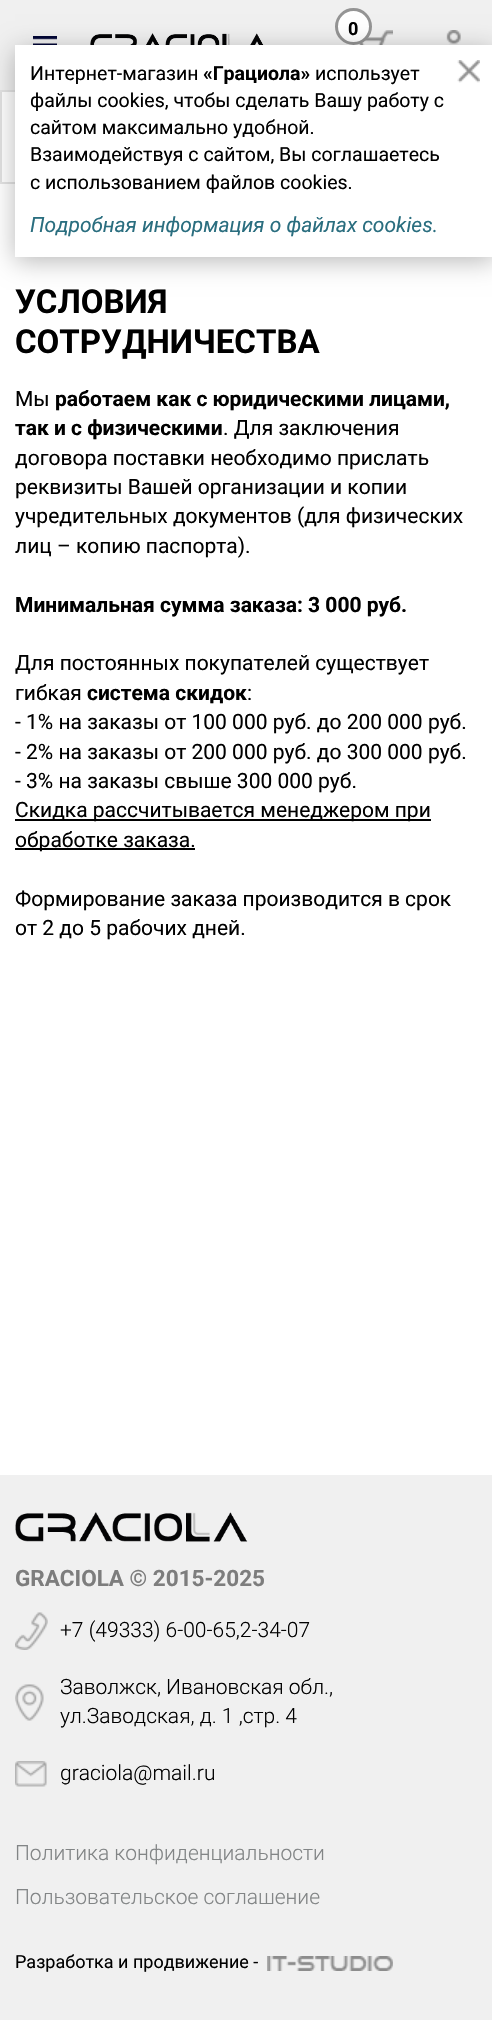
void draw(SkCanvas* canvas) {
	SkPaint paint;
	paint.setAntiAlias(true);
	canvas->clear(0xffffffff);
	paint.setColor(0xfff0f0f0);
	canvas->drawRect(SkRect::MakeXYWH(0, 0, 492, 90), paint);
	canvas->drawImageRect(SkImages::DeferredFromEncodedData(SkData::MakeFromFileName("img1.png")), SkRect::MakeXYWH(358, 30, 35, 15), SkSamplingOptions());
	paint.setColor(0xffffffff);
	canvas->drawCircle(353.5, 26.5, 17, paint);
	paint.setStroke(true);
	paint.setStrokeWidth(3);
	paint.setColor(0xff949494);
	canvas->drawCircle(353.5, 26.5, 17, paint);
	SkFont f1(fontMgr->matchFamilyStyle("Roboto", SkFontStyle::Bold()), 18);
	f1.setSubpixel(true);
	paint.setStroke(false);
	paint.setColor(0xff000000);
	canvas->drawString("0", 348, 35, f1, paint);
	canvas->drawImageRect(SkImages::DeferredFromEncodedData(SkData::MakeFromFileName("img2.png")), SkRect::MakeXYWH(446, 30, 15, 15), SkSamplingOptions());
	canvas->drawImageRect(SkImages::DeferredFromEncodedData(SkData::MakeFromFileName("img3.png")), SkRect::MakeXYWH(33, 36, 24, 9), SkSamplingOptions());
	canvas->drawImageRect(SkImages::DeferredFromEncodedData(SkData::MakeFromFileName("img4.png")), SkRect::MakeXYWH(90, 33, 174, 12), SkSamplingOptions());
	paint.setColor(0xffe3e3e3);
	canvas->drawRect(SkRect::MakeXYWH(0, 90, 15, 2), paint);
	canvas->drawRect(SkRect::MakeXYWH(0, 182, 15, 2), paint);
	paint.setColor(0xffe1e1e1);
	canvas->drawRect(SkRect::MakeXYWH(0, 92, 2, 90), paint);
	SkFont f2(fontMgr->matchFamilyStyle("Roboto", SkFontStyle::Bold()), 33);
	f2.setSubpixel(true);
	paint.setColor(0xff000000);
	canvas->drawString("УСЛОВИЯ", 15, 313, f2, paint);
	canvas->drawString("СОТРУДНИЧЕСТВА", 15, 353, f2, paint);
	SkFont f3(fontMgr->matchFamilyStyle("Roboto", SkFontStyle::Normal()), 21);
	f3.setSubpixel(true);
	canvas->drawString("Мы", 15, 406, f3, paint);
	SkFont f4(fontMgr->matchFamilyStyle("Roboto", SkFontStyle::Bold()), 21);
	f4.setSubpixel(true);
	canvas->drawString("работаем как с юридическими лицами,", 55, 406, f4, paint);
	canvas->drawString("так и с физическими", 15, 435, f4, paint);
	canvas->drawString(". Для заключения", 223, 435, f3, paint);
	canvas->drawString("договора поставки необходимо прислать", 15, 465, f3, paint);
	canvas->drawString("реквизиты Вашей организации и копии", 15, 494, f3, paint);
	canvas->drawString("учредительных документов (для физических", 15, 523, f3, paint);
	canvas->drawString("лиц – копию паспорта).", 15, 553, f3, paint);
	canvas->drawString("Минимальная сумма заказа: 3 000 руб.", 15, 612, f4, paint);
	canvas->drawString("Для постоянных покупателей существует", 15, 670, f3, paint);
	canvas->drawString("гибкая", 15, 700, f3, paint);
	canvas->drawString("система скидок", 87, 700, f4, paint);
	canvas->drawString(":", 247, 700, f3, paint);
	canvas->drawString("- 1% на заказы от 100 000 руб. до 200 000 руб.", 15, 729, f3, paint);
	canvas->drawString("- 2% на заказы от 200 000 руб. до 300 000 руб.", 15, 759, f3, paint);
	canvas->drawString("- 3% на заказы свыше 300 000 руб.", 15, 788, f3, paint);
	canvas->drawRect(SkRect::MakeXYWH(15, 819, 416, 2), paint);
	canvas->drawString("Скидка рассчитывается менеджером при", 15, 817, f3, paint);
	canvas->drawRect(SkRect::MakeXYWH(15, 848, 180, 2), paint);
	canvas->drawString("обработке заказа.", 15, 847, f3, paint);
	canvas->drawString("Формирование заказа производится в срок", 15, 906, f3, paint);
	canvas->drawString("от 2 до 5 рабочих дней.", 15, 935, f3, paint);
	paint.setColor(0x47000000);
	paint.setMaskFilter(SkMaskFilter::MakeBlur(kNormal_SkBlurStyle, 12));
	canvas->drawRect(SkRect::MakeXYWH(15, 50, 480, 211), paint);
	paint.setMaskFilter(nullptr);
	paint.setColor(0xffffffff);
	canvas->drawRect(SkRect::MakeXYWH(15, 45, 477, 212), paint);
	SkFont f5(fontMgr->matchFamilyStyle("Roboto", SkFontStyle::Normal()), 19.5);
	f5.setSubpixel(true);
	paint.setColor(0xff000000);
	canvas->drawString("Интернет-магазин", 30, 80, f5, paint);
	SkFont f6(fontMgr->matchFamilyStyle("Roboto", SkFontStyle::Bold()), 19.5);
	f6.setSubpixel(true);
	canvas->drawString("«Грациола»", 203, 80, f6, paint);
	canvas->drawString("использует", 315, 80, f5, paint);
	canvas->drawString("файлы cookies, чтобы сделать Вашу работу с", 30, 107, f5, paint);
	canvas->drawString("сайтом максимально удобной.", 30, 134, f5, paint);
	canvas->drawString("Взаимодействуя с сайтом, Вы соглашаетесь", 30, 161, f5, paint);
	canvas->drawString("с использованием файлов cookies.", 30, 189, f5, paint);
	canvas->drawImageRect(SkImages::DeferredFromEncodedData(SkData::MakeFromFileName("img5.png")), SkRect::MakeXYWH(457, 60, 23, 23), SkSamplingOptions());
	SkFont f7(fontMgr->matchFamilyStyle("Roboto", SkFontStyle::Italic()), 21);
	f7.setSubpixel(true);
	paint.setColor(0xff2a6e7f);
	canvas->drawString("Подробная информация о файлах cookies.", 30, 232, f7, paint);
	paint.setColor(0xfff0f0f0);
	canvas->drawRect(SkRect::MakeXYWH(0, 1475, 492, 545), paint);
	canvas->drawImageRect(SkImages::DeferredFromEncodedData(SkData::MakeFromFileName("img6.png")), SkRect::MakeXYWH(15, 1512, 233, 30), SkSamplingOptions());
	SkFont f8(fontMgr->matchFamilyStyle("Roboto", SkFontStyle::Bold()), 22.5);
	f8.setSubpixel(true);
	paint.setColor(0xff7d7d7d);
	canvas->drawString("GRACIOLA © 2015-2025", 15, 1586, f8, paint);
	canvas->drawImageRect(SkImages::DeferredFromEncodedData(SkData::MakeFromFileName("img7.png")), SkRect::MakeXYWH(15, 1612, 33, 38), SkSamplingOptions());
	SkFont f9(fontMgr->matchFamilyStyle("Roboto", SkFontStyle(300, SkFontStyle::kNormal_Width, SkFontStyle::kUpright_Slant)), 21);
	f9.setSubpixel(true);
	paint.setColor(0xff000000);
	canvas->drawString("+7 (49333) 6-00-65,2-34-07", 60, 1637, f9, paint);
	canvas->drawImageRect(SkImages::DeferredFromEncodedData(SkData::MakeFromFileName("img8.png")), SkRect::MakeXYWH(15, 1684, 29, 37), SkSamplingOptions());
	canvas->drawString("Заволжск, Ивановская обл.,", 60, 1694, f9, paint);
	canvas->drawString("ул.Заводская, д. 1 ,стр. 4", 60, 1723, f9, paint);
	canvas->drawImageRect(SkImages::DeferredFromEncodedData(SkData::MakeFromFileName("img9.png")), SkRect::MakeXYWH(15, 1761, 32, 26), SkSamplingOptions());
	canvas->drawString("graciola@mail.ru", 60, 1780, f9, paint);
	paint.setColor(0xff828586);
	canvas->drawString("Политика конфиденциальности", 15, 1860, f9, paint);
	canvas->drawString("Пользовательское соглашение", 15, 1904, f9, paint);
	canvas->drawImageRect(SkImages::DeferredFromEncodedData(SkData::MakeFromFileName("img10.png")), SkRect::MakeXYWH(267, 1956, 126, 15), SkSamplingOptions());
	SkFont f10(fontMgr->matchFamilyStyle("Roboto", SkFontStyle::Normal()), 18);
	f10.setSubpixel(true);
	paint.setColor(0xff000000);
	canvas->drawString("Разработка и продвижение -", 15, 1968, f10, paint);
}
